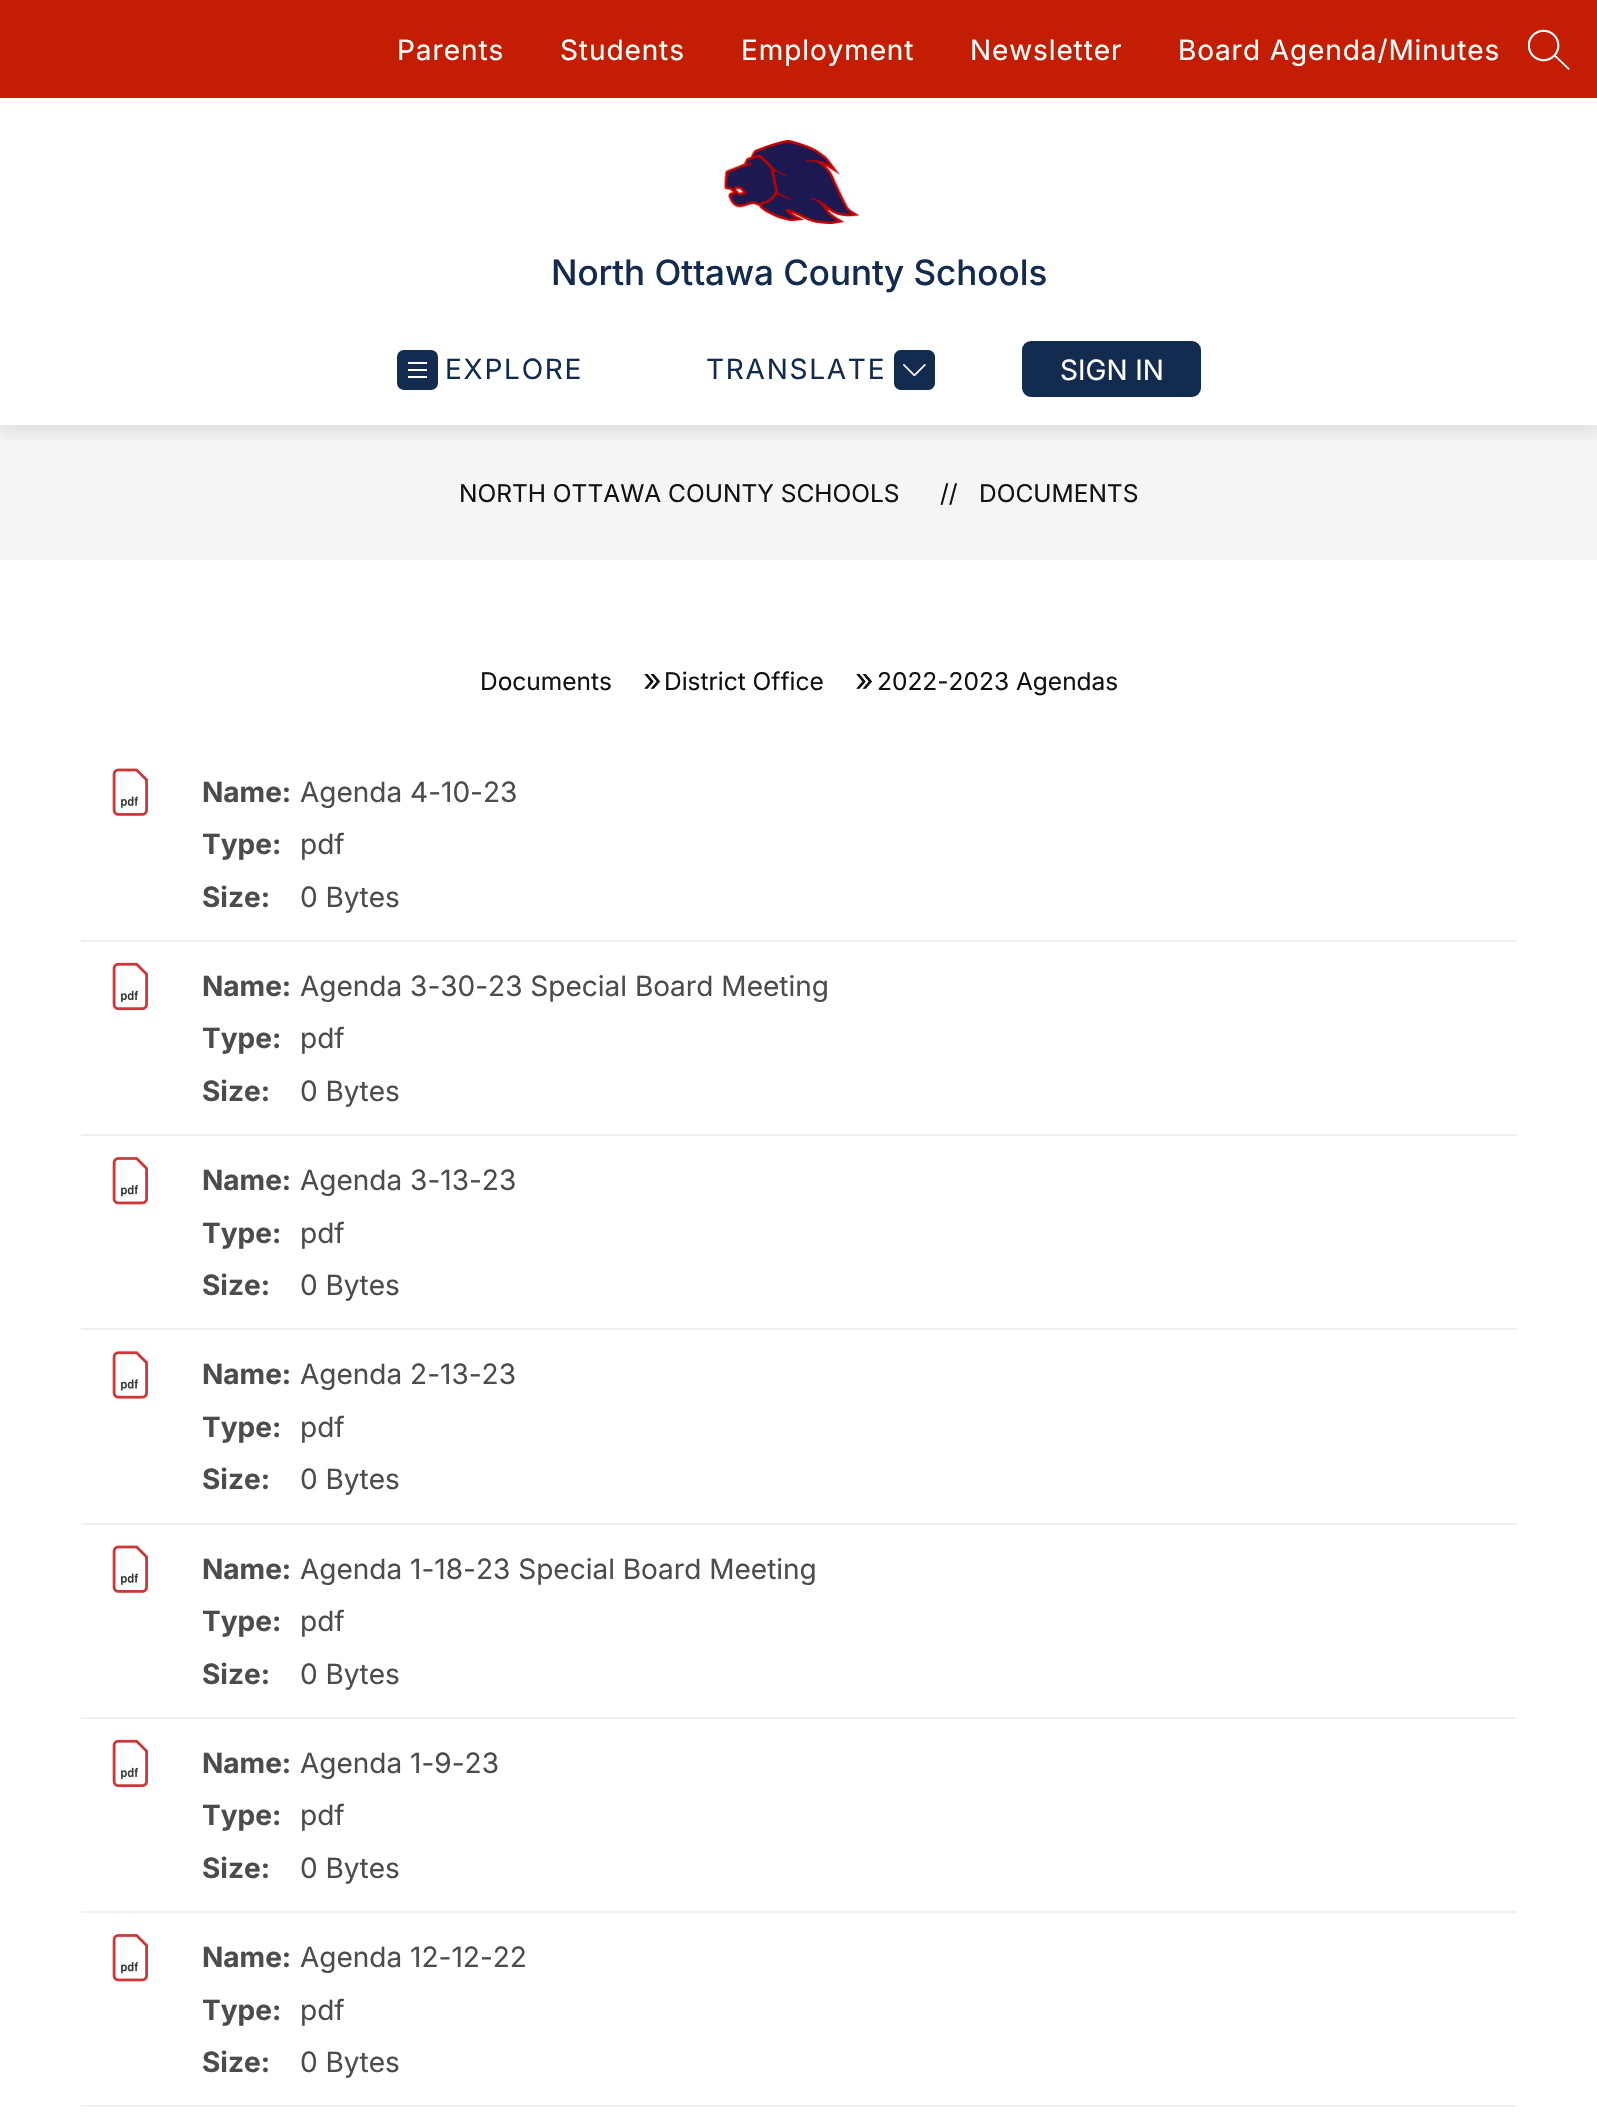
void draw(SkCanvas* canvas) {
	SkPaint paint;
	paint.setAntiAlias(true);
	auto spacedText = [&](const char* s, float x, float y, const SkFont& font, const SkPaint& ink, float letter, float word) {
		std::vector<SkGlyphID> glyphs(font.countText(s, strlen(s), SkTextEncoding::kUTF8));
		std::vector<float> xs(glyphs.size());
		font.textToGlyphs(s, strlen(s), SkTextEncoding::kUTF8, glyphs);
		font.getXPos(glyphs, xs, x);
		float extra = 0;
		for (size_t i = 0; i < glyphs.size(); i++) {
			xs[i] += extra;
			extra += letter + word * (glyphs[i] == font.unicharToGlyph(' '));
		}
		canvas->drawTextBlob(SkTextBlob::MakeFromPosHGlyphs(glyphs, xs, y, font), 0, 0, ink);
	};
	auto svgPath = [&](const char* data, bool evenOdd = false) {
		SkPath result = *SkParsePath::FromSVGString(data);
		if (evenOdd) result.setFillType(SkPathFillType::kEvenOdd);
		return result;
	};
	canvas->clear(0xffffffff);
	paint.setColor(0xfff5f5f5);
	canvas->drawRect(SkRect::MakeXYWH(0, 425, 1597, 135), paint);
	canvas->save();
	canvas->clipRect(SkRect::MakeXYWH(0, 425, 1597, 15));
	paint.setColor(0x1a000000);
	paint.setMaskFilter(SkMaskFilter::MakeBlur(kNormal_SkBlurStyle, 9));
	canvas->drawRect(SkRect::MakeXYWH(0, 7, 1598, 425), paint);
	paint.setMaskFilter(nullptr);
	canvas->restore();
	paint.setColor(0xffc31d03);
	canvas->drawRect(SkRect::MakeXYWH(0, 0, 1597, 98), paint);
	SkFont f1(fontMgr->matchFamilyStyle("Inter", SkFontStyle::Normal()), 28);
	f1.setSubpixel(true);
	paint.setColor(0xffffffff);
	spacedText("Parents", 397, 60, f1, paint, 0.9, 0);
	spacedText("Students", 560, 60, f1, paint, 0.9, 0);
	spacedText("Employment", 741, 60, f1, paint, 0.9, 0);
	spacedText("Newsletter", 970, 60, f1, paint, 0.9, 0);
	spacedText("Board Agenda/Minutes", 1178, 60, f1, paint, 0.9, 0);
	canvas->drawImageRect(SkImages::DeferredFromEncodedData(SkData::MakeFromFileName("img1.png")), SkRect::MakeXYWH(1528, 29, 42, 41), SkSamplingOptions());
	canvas->drawImageRect(SkImages::DeferredFromEncodedData(SkData::MakeFromFileName("img2.png")), SkRect::MakeXYWH(724, 140, 136, 84), SkSamplingOptions());
	SkFont f2(fontMgr->matchFamilyStyle("Inter", SkFontStyle(500, SkFontStyle::kNormal_Width, SkFontStyle::kUpright_Slant)), 35);
	f2.setSubpixel(true);
	paint.setColor(0xff122b4e);
	canvas->drawString("North Ottawa County Schools", 551, 285, f2, paint);
	canvas->drawRoundRect(SkRect::MakeXYWH(397, 350, 41, 40), 7, 7, paint);
	paint.setColor(0xffffffff);
	canvas->drawPath(svgPath("M408 362H427V364H408ZM408 369H427V371H408ZM427 376H408V378H427Z", true), paint);
	paint.setColor(0xff122b4e);
	spacedText("EXPLORE", 445, 379, f1, paint, 1.75, 0);
	spacedText("TRANSLATE", 706, 379, f1, paint, 1.75, 0);
	canvas->drawImageRect(SkImages::DeferredFromEncodedData(SkData::MakeFromFileName("img3.png")), SkRect::MakeXYWH(894, 350, 41, 40), SkSamplingOptions());
	canvas->drawRoundRect(SkRect::MakeXYWH(1023, 342, 177, 54), 8, 8, paint);
	paint.setStroke(true);
	paint.setStrokeWidth(2);
	canvas->drawRoundRect(SkRect::MakeXYWH(1023, 342, 177, 54), 8, 8, paint);
	paint.setStroke(false);
	paint.setColor(0xffffffff);
	canvas->drawString("SIGN IN", 1060, 380, f1, paint);
	SkFont f3(fontMgr->matchFamilyStyle("Inter", SkFontStyle::Normal()), 24.5);
	f3.setSubpixel(true);
	paint.setColor(0xff111111);
	canvas->drawString("NORTH OTTAWA COUNTY SCHOOLS", 459, 502, f3, paint);
	canvas->drawString("//", 940, 502, f3, paint);
	canvas->drawString("DOCUMENTS", 979, 502, f3, paint);
	canvas->drawString("Documents", 480, 690, f3, paint);
	SkFont f4(fontMgr->matchFamilyStyle("Inter", SkFontStyle::Normal()), 32);
	f4.setSubpixel(true);
	canvas->drawString("»", 643, 691, f4, paint);
	canvas->drawString("District Office", 664, 690, f3, paint);
	canvas->drawString("»", 855, 691, f4, paint);
	canvas->drawString("2022-2023 Agendas", 877, 690, f3, paint);
	paint.setColor(0xfff0f0f0);
	canvas->drawRect(SkRect::MakeXYWH(81, 940, 1436, 2), paint);
	canvas->drawImageRect(SkImages::DeferredFromEncodedData(SkData::MakeFromFileName("img4.png")), SkRect::MakeXYWH(112, 768, 36, 48), SkSamplingOptions());
	SkFont f5(fontMgr->matchFamilyStyle("Inter", SkFontStyle::Bold()), 28);
	f5.setSubpixel(true);
	paint.setColor(0xff4c4c4c);
	canvas->drawString("Name:", 202, 802, f5, paint);
	canvas->drawString("Agenda 4-10-23", 300, 802, f1, paint);
	canvas->drawString("Type:", 202, 854, f5, paint);
	canvas->drawString("pdf", 300, 854, f1, paint);
	canvas->drawString("Size:", 202, 907, f5, paint);
	canvas->drawString("0 Bytes", 300, 907, f1, paint);
	paint.setColor(0xfff0f0f0);
	canvas->drawRect(SkRect::MakeXYWH(81, 1134, 1436, 2), paint);
	canvas->drawImageRect(SkImages::DeferredFromEncodedData(SkData::MakeFromFileName("img5.png")), SkRect::MakeXYWH(112, 962, 36, 49), SkSamplingOptions());
	paint.setColor(0xff4c4c4c);
	canvas->drawString("Name:", 202, 996, f5, paint);
	canvas->drawString("Agenda 3-30-23 Special Board Meeting", 300, 996, f1, paint);
	canvas->drawString("Type:", 202, 1048, f5, paint);
	canvas->drawString("pdf", 300, 1048, f1, paint);
	canvas->drawString("Size:", 202, 1101, f5, paint);
	canvas->drawString("0 Bytes", 300, 1101, f1, paint);
	paint.setColor(0xfff0f0f0);
	canvas->drawRect(SkRect::MakeXYWH(81, 1328, 1436, 2), paint);
	canvas->drawImageRect(SkImages::DeferredFromEncodedData(SkData::MakeFromFileName("img6.png")), SkRect::MakeXYWH(112, 1157, 36, 48), SkSamplingOptions());
	paint.setColor(0xff4c4c4c);
	canvas->drawString("Name:", 202, 1190, f5, paint);
	canvas->drawString("Agenda 3-13-23", 300, 1190, f1, paint);
	canvas->drawString("Type:", 202, 1243, f5, paint);
	canvas->drawString("pdf", 300, 1243, f1, paint);
	canvas->drawString("Size:", 202, 1295, f5, paint);
	canvas->drawString("0 Bytes", 300, 1295, f1, paint);
	paint.setColor(0xfff0f0f0);
	canvas->drawRect(SkRect::MakeXYWH(81, 1523, 1436, 2), paint);
	canvas->drawImageRect(SkImages::DeferredFromEncodedData(SkData::MakeFromFileName("img7.png")), SkRect::MakeXYWH(112, 1351, 36, 48), SkSamplingOptions());
	paint.setColor(0xff4c4c4c);
	canvas->drawString("Name:", 202, 1384, f5, paint);
	canvas->drawString("Agenda 2-13-23", 300, 1384, f1, paint);
	canvas->drawString("Type:", 202, 1437, f5, paint);
	canvas->drawString("pdf", 300, 1437, f1, paint);
	canvas->drawString("Size:", 202, 1489, f5, paint);
	canvas->drawString("0 Bytes", 300, 1489, f1, paint);
	paint.setColor(0xfff0f0f0);
	canvas->drawRect(SkRect::MakeXYWH(81, 1717, 1436, 2), paint);
	canvas->drawImageRect(SkImages::DeferredFromEncodedData(SkData::MakeFromFileName("img4.png")), SkRect::MakeXYWH(112, 1545, 36, 48), SkSamplingOptions());
	paint.setColor(0xff4c4c4c);
	canvas->drawString("Name:", 202, 1579, f5, paint);
	canvas->drawString("Agenda 1-18-23 Special Board Meeting", 300, 1579, f1, paint);
	canvas->drawString("Type:", 202, 1631, f5, paint);
	canvas->drawString("pdf", 300, 1631, f1, paint);
	canvas->drawString("Size:", 202, 1684, f5, paint);
	canvas->drawString("0 Bytes", 300, 1684, f1, paint);
	paint.setColor(0xfff0f0f0);
	canvas->drawRect(SkRect::MakeXYWH(81, 1911, 1436, 2), paint);
	canvas->drawImageRect(SkImages::DeferredFromEncodedData(SkData::MakeFromFileName("img5.png")), SkRect::MakeXYWH(112, 1739, 36, 49), SkSamplingOptions());
	paint.setColor(0xff4c4c4c);
	canvas->drawString("Name:", 202, 1773, f5, paint);
	canvas->drawString("Agenda 1-9-23", 300, 1773, f1, paint);
	canvas->drawString("Type:", 202, 1825, f5, paint);
	canvas->drawString("pdf", 300, 1825, f1, paint);
	canvas->drawString("Size:", 202, 1878, f5, paint);
	canvas->drawString("0 Bytes", 300, 1878, f1, paint);
	paint.setColor(0xfff0f0f0);
	canvas->drawRect(SkRect::MakeXYWH(81, 2105, 1436, 2), paint);
	canvas->drawImageRect(SkImages::DeferredFromEncodedData(SkData::MakeFromFileName("img6.png")), SkRect::MakeXYWH(112, 1934, 36, 48), SkSamplingOptions());
	paint.setColor(0xff4c4c4c);
	canvas->drawString("Name:", 202, 1967, f5, paint);
	canvas->drawString("Agenda 12-12-22", 300, 1967, f1, paint);
	canvas->drawString("Type:", 202, 2020, f5, paint);
	canvas->drawString("pdf", 300, 2020, f1, paint);
	canvas->drawString("Size:", 202, 2072, f5, paint);
	canvas->drawString("0 Bytes", 300, 2072, f1, paint);
}
